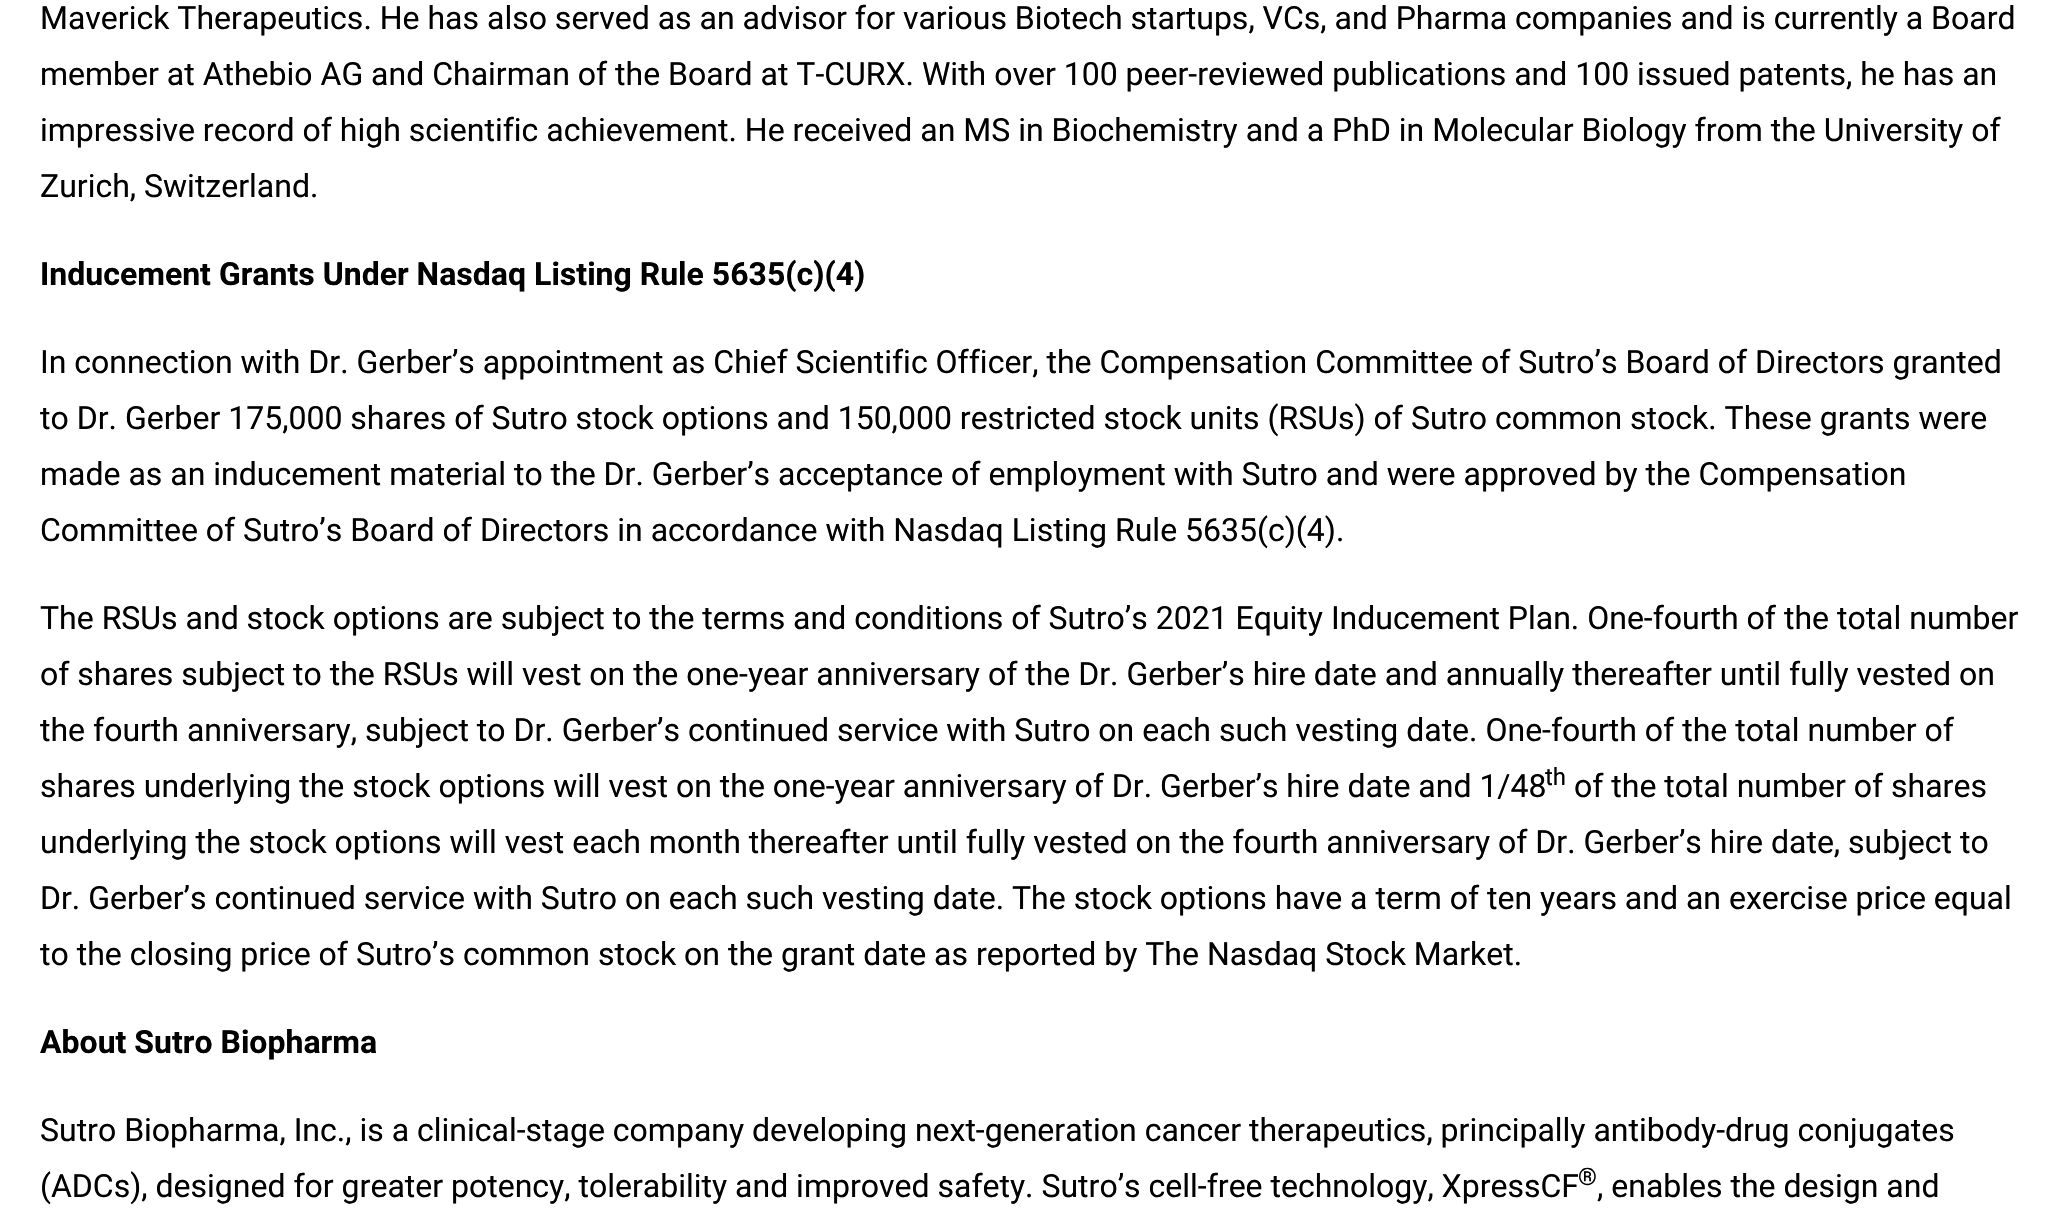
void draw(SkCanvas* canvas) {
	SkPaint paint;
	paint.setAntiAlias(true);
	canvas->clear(0xffffffff);
	SkFont f1(fontMgr->matchFamilyStyle("Roboto", SkFontStyle::Normal()), 32);
	f1.setSubpixel(true);
	paint.setColor(0xff000000);
	canvas->drawString("Maverick Therapeutics. He has also served as an advisor for various Biotech startups, VCs, and Pharma companies and is currently a Board", 40, 29, f1, paint);
	canvas->drawString("member at Athebio AG and Chairman of the Board at T-CURX. With over 100 peer-reviewed publications and 100 issued patents, he has an", 40, 85, f1, paint);
	canvas->drawString("impressive record of high scientific achievement. He received an MS in Biochemistry and a PhD in Molecular Biology from the University of", 40, 141, f1, paint);
	canvas->drawString("Zurich, Switzerland.", 40, 197, f1, paint);
	SkFont f2(fontMgr->matchFamilyStyle("Roboto", SkFontStyle::Bold()), 32);
	f2.setSubpixel(true);
	canvas->drawString("Inducement Grants Under Nasdaq Listing Rule 5635(c)(4)", 40, 285, f2, paint);
	canvas->drawString("In connection with Dr. Gerber’s appointment as Chief Scientific Officer, the Compensation Committee of Sutro’s Board of Directors granted", 40, 373, f1, paint);
	canvas->drawString("to Dr. Gerber 175,000 shares of Sutro stock options and 150,000 restricted stock units (RSUs) of Sutro common stock. These grants were", 40, 429, f1, paint);
	canvas->drawString("made as an inducement material to the Dr. Gerber’s acceptance of employment with Sutro and were approved by the Compensation", 40, 485, f1, paint);
	canvas->drawString("Committee of Sutro’s Board of Directors in accordance with Nasdaq Listing Rule 5635(c)(4).", 40, 541, f1, paint);
	canvas->drawString("The RSUs and stock options are subject to the terms and conditions of Sutro’s 2021 Equity Inducement Plan. One-fourth of the total number", 40, 629, f1, paint);
	canvas->drawString("of shares subject to the RSUs will vest on the one-year anniversary of the Dr. Gerber’s hire date and annually thereafter until fully vested on", 40, 685, f1, paint);
	canvas->drawString("the fourth anniversary, subject to Dr. Gerber’s continued service with Sutro on each such vesting date. One-fourth of the total number of", 40, 741, f1, paint);
	canvas->drawString("shares underlying the stock options will vest on the one-year anniversary of Dr. Gerber’s hire date and 1/48", 40, 797, f1, paint);
	SkFont f3(fontMgr->matchFamilyStyle("Roboto", SkFontStyle::Normal()), 24);
	f3.setSubpixel(true);
	canvas->drawString("th", 1545, 785, f3, paint);
	canvas->drawString("of the total number of shares", 1574, 797, f1, paint);
	canvas->drawString("underlying the stock options will vest each month thereafter until fully vested on the fourth anniversary of Dr. Gerber’s hire date, subject to", 40, 853, f1, paint);
	canvas->drawString("Dr. Gerber’s continued service with Sutro on each such vesting date. The stock options have a term of ten years and an exercise price equal", 40, 909, f1, paint);
	canvas->drawString("to the closing price of Sutro’s common stock on the grant date as reported by The Nasdaq Stock Market.", 40, 965, f1, paint);
	canvas->drawString("About Sutro Biopharma", 40, 1053, f2, paint);
	canvas->drawString("Sutro Biopharma, Inc., is a clinical-stage company developing next-generation cancer therapeutics, principally antibody-drug conjugates", 40, 1141, f1, paint);
	canvas->drawString("(ADCs), designed for greater potency, tolerability and improved safety. Sutro’s cell-free technology, XpressCF", 40, 1197, f1, paint);
	canvas->drawString("®", 1578, 1185, f3, paint);
	canvas->drawString(", enables the design and", 1597, 1197, f1, paint);
}
